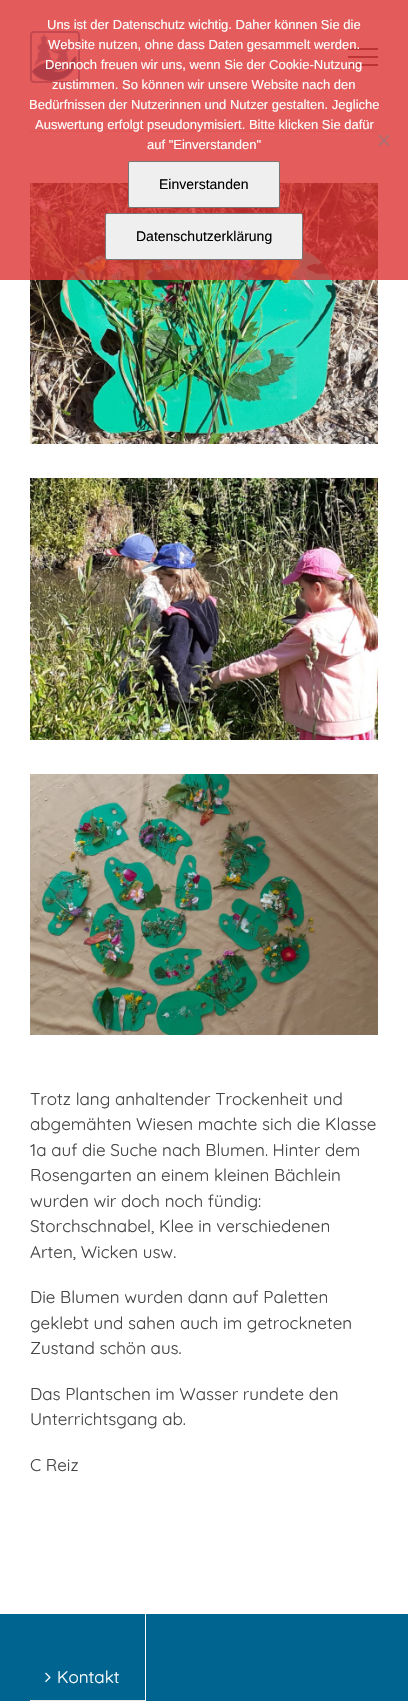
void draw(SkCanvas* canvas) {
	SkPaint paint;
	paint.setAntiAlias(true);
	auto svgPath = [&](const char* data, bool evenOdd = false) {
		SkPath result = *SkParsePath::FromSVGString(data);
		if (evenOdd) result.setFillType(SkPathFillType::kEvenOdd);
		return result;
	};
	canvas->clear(0xfff6f6f6);
	paint.setColor(0xffffffff);
	canvas->drawRect(SkRect::MakeXYWH(0, 20, 408, 1594), paint);
	paint.setStroke(true);
	paint.setStrokeWidth(2);
	paint.setColor(0xff5e99bc);
	canvas->drawRoundRect(SkRect::MakeXYWH(31, 32, 48, 50), 3, 3, paint);
	canvas->drawImageRect(SkImages::DeferredFromEncodedData(SkData::MakeFromFileName("img1.png")), SkRect::MakeXYWH(32, 33, 45, 48), SkSamplingOptions());
	paint.setStroke(false);
	paint.setColor(0xff333333);
	canvas->drawRect(SkRect::MakeXYWH(348, 48, 30, 2), paint);
	canvas->drawRect(SkRect::MakeXYWH(348, 56, 30, 2), paint);
	canvas->drawRect(SkRect::MakeXYWH(348, 64, 30, 2), paint);
	paint.setColor(0xffe0dede);
	canvas->drawRect(SkRect::MakeXYWH(30, 131, 348, 1), paint);
	canvas->drawImageRect(SkImages::DeferredFromEncodedData(SkData::MakeFromFileName("img2.png")), SkRect::MakeXYWH(30, 183, 348, 261), SkSamplingOptions());
	paint.setColor(0xccdd3333);
	canvas->drawRect(SkRect::MakeXYWH(0, 0, 408, 280), paint);
	SkFont f1(fontMgr->matchFamilyStyle("Liberation Sans", SkFontStyle::Normal()), 13);
	f1.setSubpixel(true);
	paint.setColor(0xffffffff);
	canvas->drawString("Uns ist der Datenschutz wichtig. Daher können Sie die", 47, 29, f1, paint);
	canvas->drawString("Website nutzen, ohne dass Daten gesammelt werden.", 48, 49, f1, paint);
	canvas->drawString("Dennoch freuen wir uns, wenn Sie der Cookie-Nutzung", 45, 69, f1, paint);
	canvas->drawString("zustimmen. So können wir unsere Website nach den", 52, 89, f1, paint);
	canvas->drawString("Bedürfnissen der Nutzerinnen und Nutzer gestalten. Jegliche", 29, 109, f1, paint);
	canvas->drawString("Auswertung erfolgt pseudonymisiert. Bitte klicken Sie dafür", 35, 129, f1, paint);
	canvas->drawString("auf \"Einverstanden\"", 147, 149, f1, paint);
	paint.setColor(0xffb26e6e);
	canvas->drawPath(svgPath("M388.5 134.5L390 136L379.5 146.5L378 145Z"), paint);
	canvas->drawPath(svgPath("M378 136L379.5 134.5L390 145L388.5 146.5Z"), paint);
	paint.setColor(0xffefefef);
	canvas->drawRoundRect(SkRect::MakeXYWH(128.5, 161.5, 151, 46), 1.5, 1.5, paint);
	paint.setStroke(true);
	paint.setStrokeWidth(1);
	paint.setColor(0xff767676);
	canvas->drawRoundRect(SkRect::MakeXYWH(128.5, 161.5, 151, 46), 1.5, 1.5, paint);
	SkFont f2(fontMgr->matchFamilyStyle("Liberation Sans", SkFontStyle::Normal()), 14);
	f2.setSubpixel(true);
	paint.setStroke(false);
	paint.setColor(0xff000000);
	canvas->drawString("Einverstanden", 159, 189, f2, paint);
	paint.setColor(0xffefefef);
	canvas->drawRoundRect(SkRect::MakeXYWH(105.5, 213.5, 197, 46), 1.5, 1.5, paint);
	paint.setStroke(true);
	paint.setColor(0xff767676);
	canvas->drawRoundRect(SkRect::MakeXYWH(105.5, 213.5, 197, 46), 1.5, 1.5, paint);
	paint.setStroke(false);
	paint.setColor(0xff000000);
	canvas->drawString("Datenschutzerklärung", 136, 241, f2, paint);
	canvas->drawImageRect(SkImages::DeferredFromEncodedData(SkData::MakeFromFileName("img3.png")), SkRect::MakeXYWH(30, 478, 348, 262), SkSamplingOptions());
	canvas->drawImageRect(SkImages::DeferredFromEncodedData(SkData::MakeFromFileName("img4.png")), SkRect::MakeXYWH(30, 774, 348, 261), SkSamplingOptions());
	SkFont f3(fontMgr->matchFamilyStyle("Quicksand", SkFontStyle::Normal()), 17);
	f3.setSubpixel(true);
	paint.setColor(0xff444444);
	canvas->drawString("Trotz lang anhaltender Trockenheit und", 30, 1105, f3, paint);
	canvas->drawString("abgemähten Wiesen machte sich die Klasse", 30, 1130, f3, paint);
	canvas->drawString("1a auf die Suche nach Blumen. Hinter dem", 30, 1156, f3, paint);
	canvas->drawString("Rosengarten an einem kleinen Bächlein", 30, 1181, f3, paint);
	canvas->drawString("wurden wir doch noch fündig:", 30, 1207, f3, paint);
	canvas->drawString("Storchschnabel, Klee in verschiedenen", 30, 1232, f3, paint);
	canvas->drawString("Arten, Wicken usw.", 30, 1258, f3, paint);
	canvas->drawString("Die Blumen wurden dann auf Paletten", 30, 1303, f3, paint);
	canvas->drawString("geklebt und sahen auch im getrockneten", 30, 1329, f3, paint);
	canvas->drawString("Zustand schön aus.", 30, 1354, f3, paint);
	canvas->drawString("Das Plantschen im Wasser rundete den", 30, 1400, f3, paint);
	canvas->drawString("Unterrichtsgang ab.", 30, 1425, f3, paint);
	canvas->drawString("C Reiz", 30, 1471, f3, paint);
	paint.setColor(0xff006491);
	canvas->drawRect(SkRect::MakeXYWH(0, 1614, 408, 87), paint);
	paint.setColor(0xffffffff);
	canvas->drawRect(SkRect::MakeXYWH(145, 1614, 1, 87), paint);
	paint.setColor(0xffeaeaea);
	canvas->drawRect(SkRect::MakeXYWH(30, 1700, 115, 1), paint);
	canvas->drawImageRect(SkImages::DeferredFromEncodedData(SkData::MakeFromFileName("img5.png")), SkRect::MakeXYWH(45, 1672, 6, 11), SkSamplingOptions());
	paint.setColor(0xffffffff);
	canvas->drawString("Kontakt", 57, 1683, f3, paint);
}
